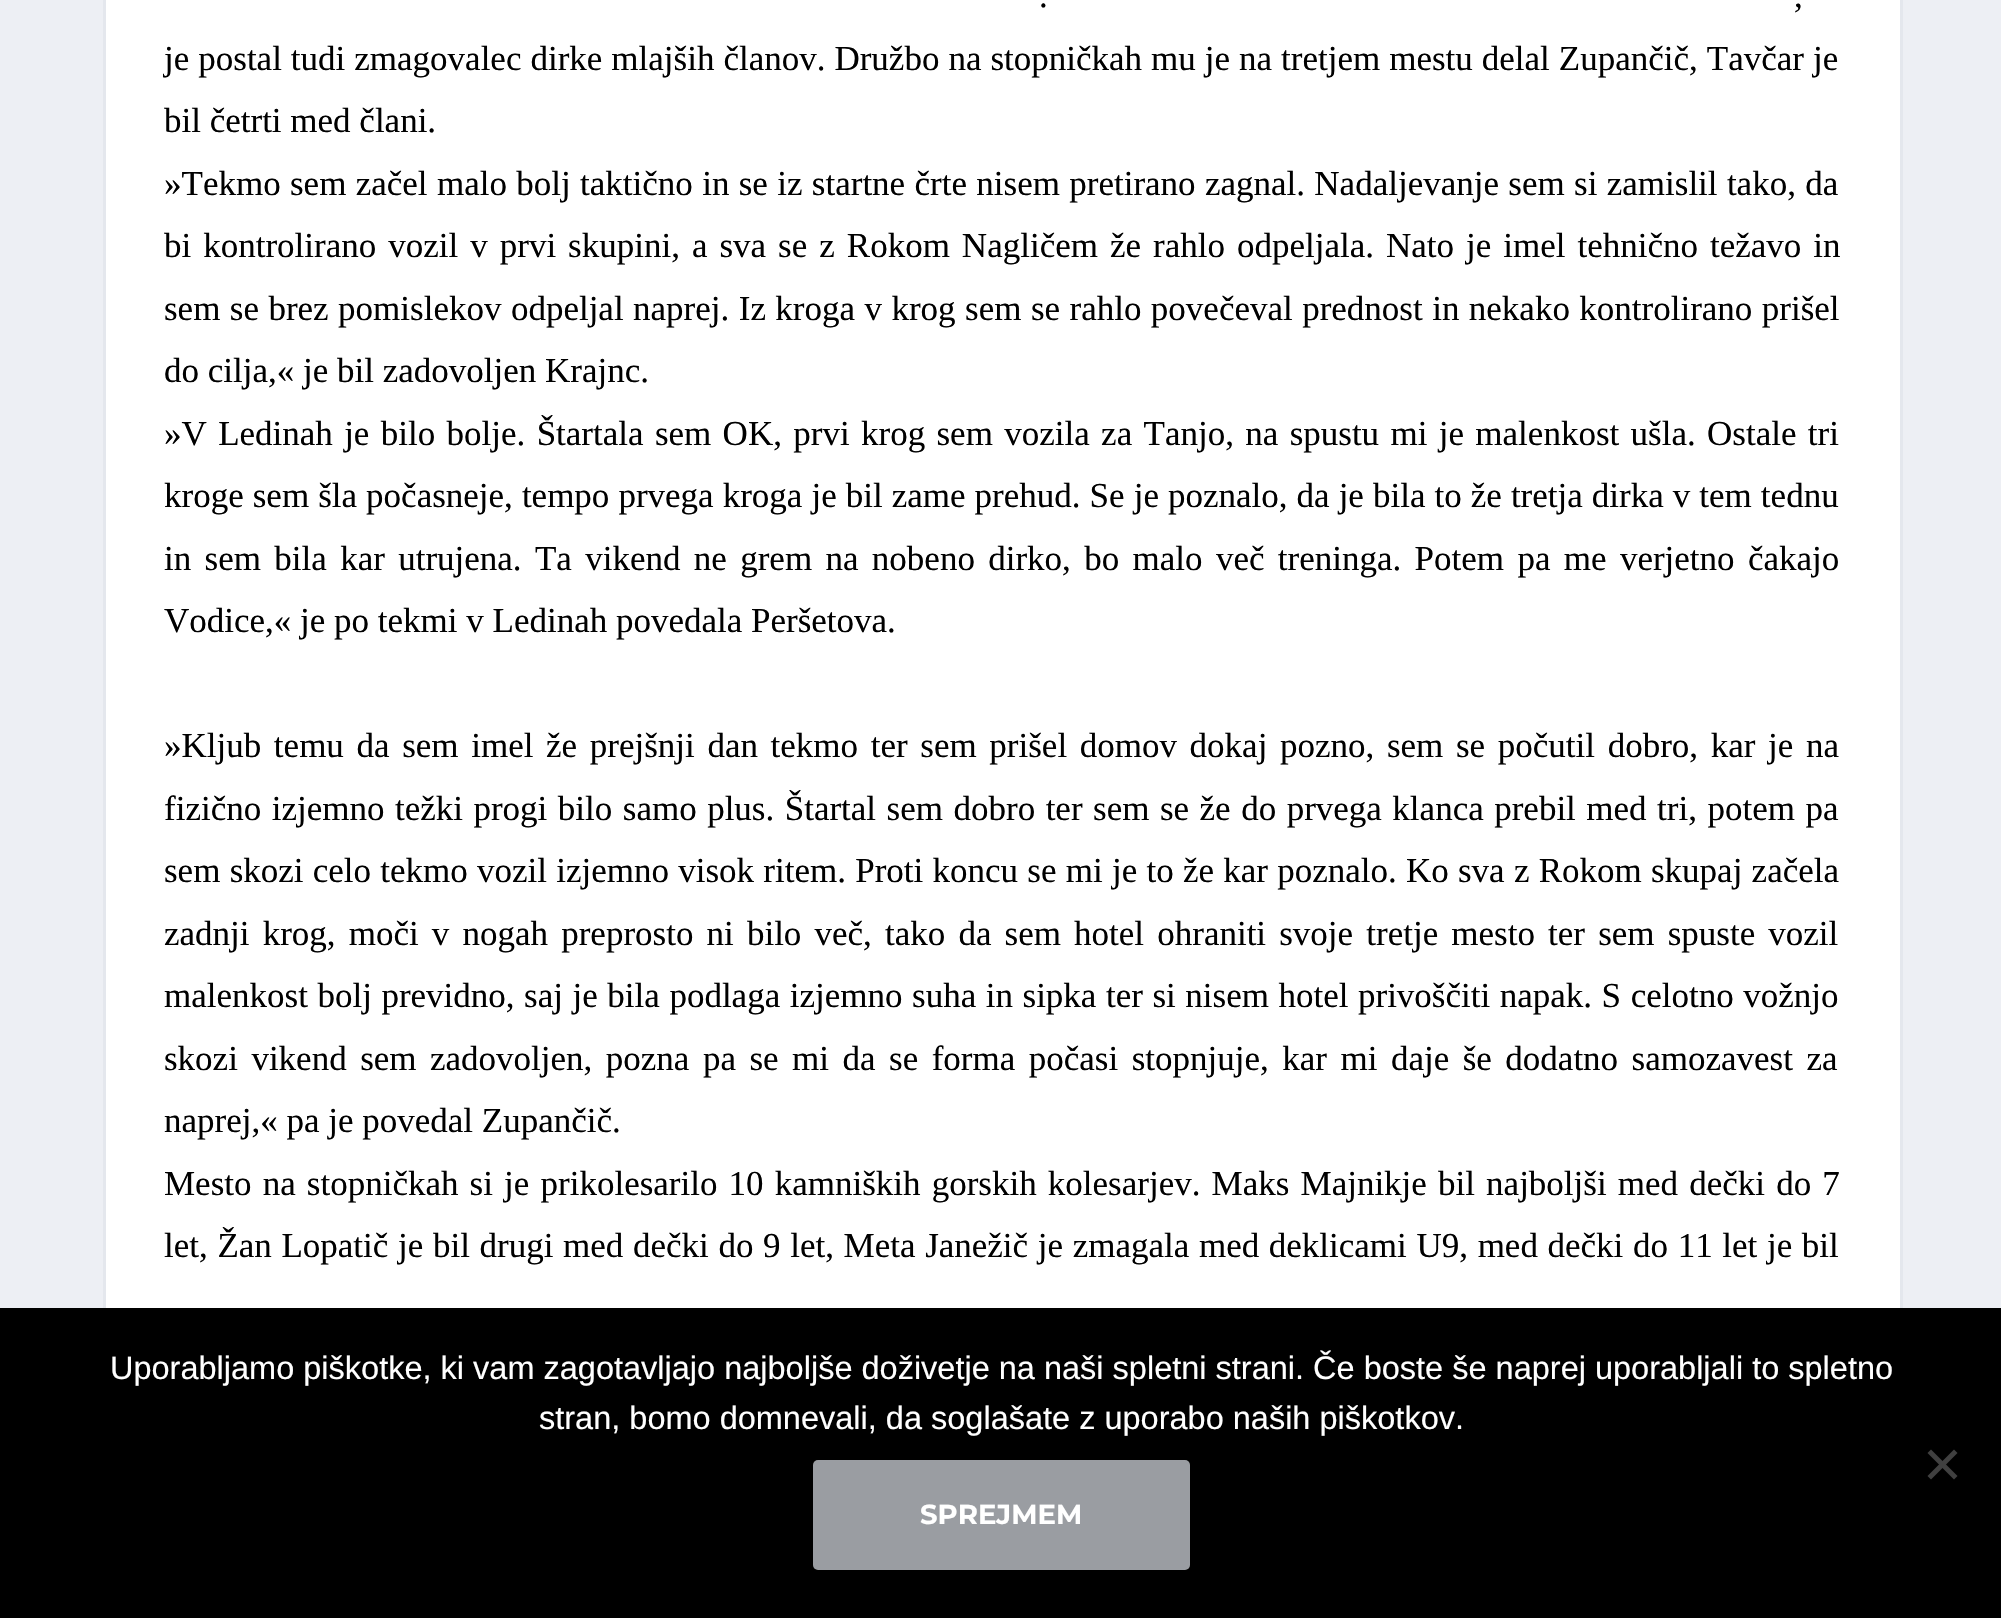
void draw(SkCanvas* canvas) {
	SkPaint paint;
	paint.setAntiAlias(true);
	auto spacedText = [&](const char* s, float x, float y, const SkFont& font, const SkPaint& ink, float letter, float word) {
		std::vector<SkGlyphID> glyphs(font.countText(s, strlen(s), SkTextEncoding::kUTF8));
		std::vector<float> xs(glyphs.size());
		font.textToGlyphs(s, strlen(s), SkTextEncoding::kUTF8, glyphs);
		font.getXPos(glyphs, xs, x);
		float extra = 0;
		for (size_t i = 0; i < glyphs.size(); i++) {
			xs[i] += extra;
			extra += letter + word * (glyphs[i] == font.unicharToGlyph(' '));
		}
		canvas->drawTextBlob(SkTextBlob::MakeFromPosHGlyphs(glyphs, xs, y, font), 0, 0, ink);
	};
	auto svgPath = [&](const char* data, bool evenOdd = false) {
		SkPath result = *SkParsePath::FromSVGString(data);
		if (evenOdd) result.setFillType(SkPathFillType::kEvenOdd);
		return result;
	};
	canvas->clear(0xffedeff4);
	paint.setColor(0xffffffff);
	canvas->drawRect(SkRect::MakeXYWH(106, 0, 1794, 1308), paint);
	paint.setStroke(true);
	paint.setStrokeWidth(3);
	paint.setColor(0xffe4e7ed);
	canvas->drawRect(SkRect::MakeXYWH(104.5, -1.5, 1797, 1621), paint);
	SkFont f1(fontMgr->matchFamilyStyle("Liberation Serif", SkFontStyle::Normal()), 35);
	f1.setSubpixel(true);
	paint.setStroke(false);
	paint.setColor(0xff000000);
	canvas->drawString(".", 1039, 7, f1, paint);
	canvas->drawString(",", 1794, 7, f1, paint);
	spacedText("je postal tudi zmagovalec dirke mlajših članov. Družbo na stopničkah mu je na tretjem mestu delal Zupančič, Tavčar je", 164, 70, f1, paint, 0, 0.25);
	canvas->drawString("bil četrti med člani.", 164, 132, f1, paint);
	spacedText("»Tekmo sem začel malo bolj taktično in se iz startne črte nisem pretirano zagnal. Nadaljevanje sem si zamislil tako, da", 164, 195, f1, paint, 0, 0.6);
	spacedText("bi kontrolirano vozil v prvi skupini, a sva se z Rokom Nagličem že rahlo odpeljala. Nato je imel tehnično težavo in", 164, 257, f1, paint, 0, 3.25);
	spacedText("sem se brez pomislekov odpeljal naprej. Iz kroga v krog sem se rahlo povečeval prednost in nekako kontrolirano prišel", 164, 320, f1, paint, 0, 0.7);
	canvas->drawString("do cilja,« je bil zadovoljen Krajnc.", 164, 382, f1, paint);
	spacedText("»V Ledinah je bilo bolje. Štartala sem OK, prvi krog sem vozila za Tanjo, na spustu mi je malenkost ušla. Ostale tri", 164, 445, f1, paint, 0, 2.6);
	spacedText("kroge sem šla počasneje, tempo prvega kroga je bil zame prehud. Se je poznalo, da je bila to že tretja dirka v tem tednu", 164, 507, f1, paint, 0, 0.3);
	spacedText("in sem bila kar utrujena. Ta vikend ne grem na nobeno dirko, bo malo več treninga. Potem pa me verjetno čakajo", 164, 570, f1, paint, 0, 4.6);
	canvas->drawString("Vodice,« je po tekmi v Ledinah povedala Peršetova.", 164, 632, f1, paint);
	spacedText("»Kljub temu da sem imel že prejšnji dan tekmo ter sem prišel domov dokaj pozno, sem se počutil dobro, kar je na", 164, 757, f1, paint, 0, 3.9);
	spacedText("fizično izjemno težki progi bilo samo plus. Štartal sem dobro ter sem se že do prvega klanca prebil med tri, potem pa", 164, 820, f1, paint, 0, 1.75);
	spacedText("sem skozi celo tekmo vozil izjemno visok ritem. Proti koncu se mi je to že kar poznalo. Ko sva z Rokom skupaj začela", 164, 882, f1, paint, 0, 0.5);
	spacedText("zadnji krog, moči v nogah preprosto ni bilo več, tako da sem hotel ohraniti svoje tretje mesto ter sem spuste vozil", 164, 945, f1, paint, 0, 4.4);
	spacedText("malenkost bolj previdno, saj je bila podlaga izjemno suha in sipka ter si nisem hotel privoščiti napak. S celotno vožnjo", 164, 1007, f1, paint, 0, 0.8);
	spacedText("skozi vikend sem zadovoljen, pozna pa se mi da se forma počasi stopnjuje, kar mi daje še dodatno samozavest za", 164, 1070, f1, paint, 0, 4.75);
	canvas->drawString("naprej,« pa je povedal Zupančič.", 164, 1132, f1, paint);
	spacedText("Mesto na stopničkah si je prikolesarilo 10 kamniških gorskih kolesarjev. Maks Majnikje bil najboljši med dečki do 7", 164, 1195, f1, paint, 0, 2.4);
	spacedText("let, Žan Lopatič je bil drugi med dečki do 9 let, Meta Janežič je zmagala med deklicami U9, med dečki do 11 let je bil", 164, 1257, f1, paint, 0, 0.9);
	canvas->drawRect(SkRect::MakeXYWH(0, 1308, 2001, 310), paint);
	SkFont f2(fontMgr->matchFamilyStyle("Liberation Sans", SkFontStyle::Normal()), 32.5);
	f2.setSubpixel(true);
	paint.setColor(0xffffffff);
	canvas->drawString("Uporabljamo piškotke, ki vam zagotavljajo najboljše doživetje na naši spletni strani. Če boste še naprej uporabljali to spletno", 110, 1379, f2, paint);
	canvas->drawString("stran, bomo domnevali, da soglašate z uporabo naših piškotkov.", 539, 1429, f2, paint);
	paint.setColor(0xff404040);
	canvas->drawPath(svgPath("M1954 1449.5L1957.5 1453L1931 1479.5L1927.5 1476Z"), paint);
	canvas->drawPath(svgPath("M1927.5 1453L1931 1449.5L1957.5 1476L1954 1479.5Z"), paint);
	paint.setColor(0xff9a9da2);
	canvas->drawRoundRect(SkRect::MakeXYWH(813, 1460, 377, 110), 5, 5, paint);
	SkFont f3(fontMgr->matchFamilyStyle("Montserrat", SkFontStyle::Bold()), 27.5);
	f3.setSubpixel(true);
	paint.setColor(0xffffffff);
	canvas->drawString("SPREJMEM", 920, 1524, f3, paint);
}
